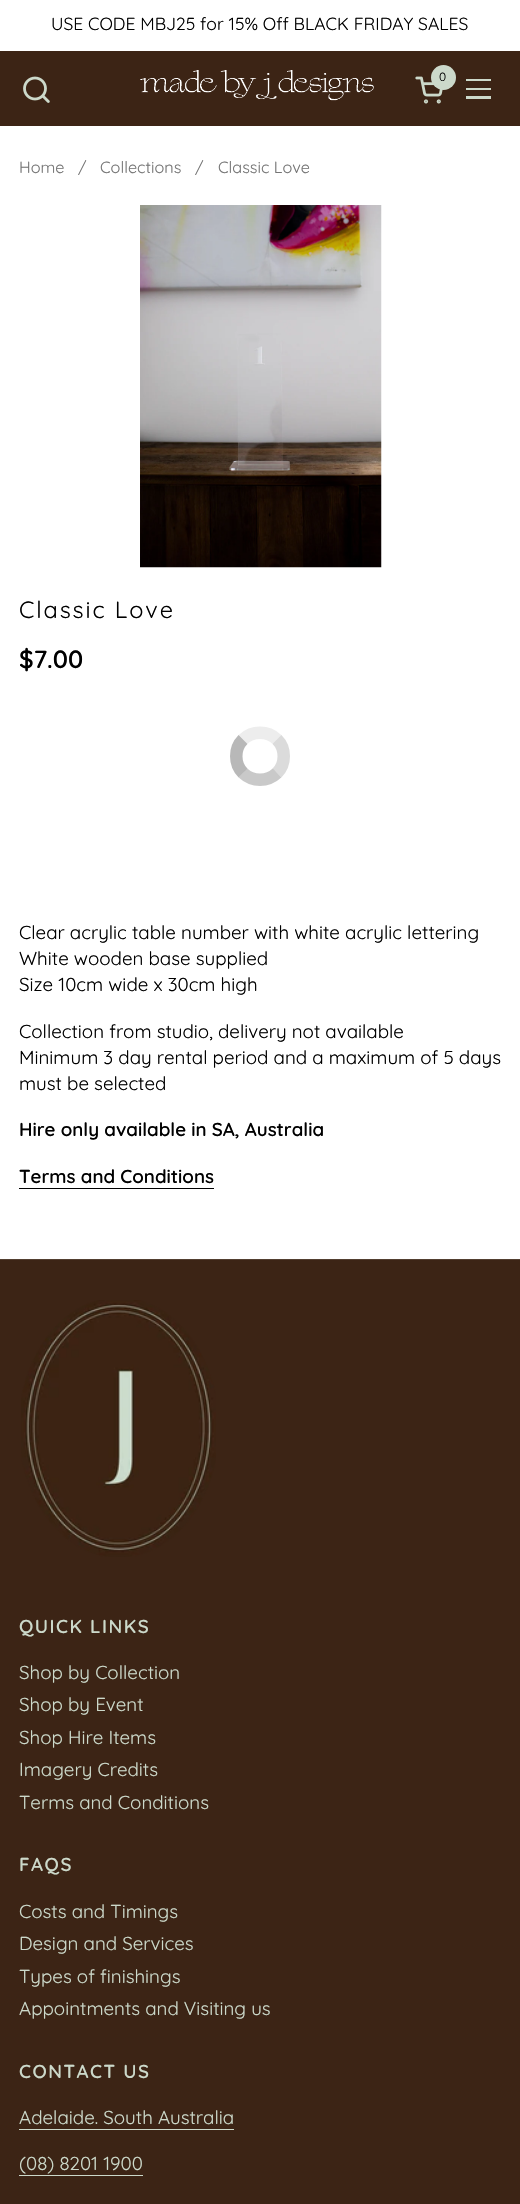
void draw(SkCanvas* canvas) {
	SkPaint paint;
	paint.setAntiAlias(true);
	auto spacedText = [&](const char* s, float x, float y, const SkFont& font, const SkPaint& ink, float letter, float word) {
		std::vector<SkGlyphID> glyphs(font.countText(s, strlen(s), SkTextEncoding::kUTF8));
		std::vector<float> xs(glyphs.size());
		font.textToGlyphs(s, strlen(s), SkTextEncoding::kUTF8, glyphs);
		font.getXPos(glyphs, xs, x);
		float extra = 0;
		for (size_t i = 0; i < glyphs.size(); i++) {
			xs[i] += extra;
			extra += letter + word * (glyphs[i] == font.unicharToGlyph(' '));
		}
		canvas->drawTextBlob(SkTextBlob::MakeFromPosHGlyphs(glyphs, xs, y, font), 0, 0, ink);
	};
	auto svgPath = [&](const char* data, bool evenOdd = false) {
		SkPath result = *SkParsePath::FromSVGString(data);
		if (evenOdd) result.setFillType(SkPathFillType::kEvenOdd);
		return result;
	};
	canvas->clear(0xffffffff);
	SkFont f1(fontMgr->matchFamilyStyle("Quicksand", SkFontStyle::Normal()), 17.5);
	f1.setSubpixel(true);
	paint.setColor(0xff000000);
	canvas->drawString("USE CODE MBJ25 for 15% Off BLACK FRIDAY SALES", 51, 30, f1, paint);
	paint.setColor(0xff3c2415);
	canvas->drawRect(SkRect::MakeXYWH(0, 51, 520, 75), paint);
	canvas->drawImageRect(SkImages::DeferredFromEncodedData(SkData::MakeFromFileName("img1.png")), SkRect::MakeXYWH(23, 76, 27, 27), SkSamplingOptions());
	canvas->drawImageRect(SkImages::DeferredFromEncodedData(SkData::MakeFromFileName("img2.png")), SkRect::MakeXYWH(140, 70, 234, 31), SkSamplingOptions());
	paint.setColor(0xffccd9ca);
	canvas->drawCircle(443.5, 77.5, 12.5, paint);
	SkFont f2(fontMgr->matchFamilyStyle("Quicksand", SkFontStyle::Normal()), 12);
	f2.setSubpixel(true);
	paint.setColor(0xff000000);
	canvas->drawString("0", 439, 81, f2, paint);
	canvas->drawImageRect(SkImages::DeferredFromEncodedData(SkData::MakeFromFileName("img3.png")), SkRect::MakeXYWH(415, 76, 28, 28), SkSamplingOptions());
	paint.setColor(0xffccd9ca);
	canvas->drawRect(SkRect::MakeXYWH(466, 79, 25, 2), paint);
	canvas->drawRect(SkRect::MakeXYWH(466, 88, 25, 2), paint);
	canvas->drawRect(SkRect::MakeXYWH(466, 96, 25, 3), paint);
	SkFont f3(fontMgr->matchFamilyStyle("Quicksand", SkFontStyle::Normal()), 16.25);
	f3.setSubpixel(true);
	paint.setColor(0xff757575);
	canvas->drawString("Home", 19, 173, f3, paint);
	canvas->drawString("/", 78, 173, f3, paint);
	canvas->drawString("Collections", 100, 173, f3, paint);
	canvas->drawString("/", 195, 173, f3, paint);
	canvas->drawString("Classic Love", 218, 173, f3, paint);
	canvas->drawImageRect(SkImages::DeferredFromEncodedData(SkData::MakeFromFileName("img4.png")), SkRect::MakeXYWH(140, 205, 242, 363), SkSamplingOptions());
	SkFont f4(fontMgr->matchFamilyStyle("Quicksand", SkFontStyle::Normal()), 23.5);
	f4.setSubpixel(true);
	paint.setColor(0xff000000);
	spacedText("Classic Love", 19, 618, f4, paint, 1.9, 0);
	SkFont f5(fontMgr->matchFamilyStyle("Quicksand", SkFontStyle(600, SkFontStyle::kNormal_Width, SkFontStyle::kUpright_Slant)), 25);
	f5.setSubpixel(true);
	canvas->drawString("$7.00", 19, 668, f5, paint);
	paint.setStroke(true);
	paint.setStrokeWidth(12.5);
	paint.setColor(0xffededed);
	canvas->drawPath(svgPath("M243 739.5C252.5 730.5 267.5 730.5 277 739.5"), paint);
	paint.setColor(0x24000000);
	canvas->drawPath(svgPath("M277 739.5C286 748.5 286 764 277 773"), paint);
	paint.setColor(0x36000000);
	canvas->drawPath(svgPath("M277 773C267.5 782 252.5 782 243 773"), paint);
	paint.setColor(0x47000000);
	canvas->drawPath(svgPath("M243 773C234 764 234 748.5 243 739.5"), paint);
	SkFont f6(fontMgr->matchFamilyStyle("Quicksand", SkFontStyle::Normal()), 18.75);
	f6.setSubpixel(true);
	paint.setStroke(false);
	paint.setColor(0xff000000);
	canvas->drawString("Clear acrylic table number with white acrylic lettering", 19, 939, f6, paint);
	canvas->drawString("White wooden base supplied", 19, 965, f6, paint);
	canvas->drawString("Size 10cm wide x 30cm high", 19, 991, f6, paint);
	canvas->drawString("Collection from studio, delivery not available", 19, 1038, f6, paint);
	canvas->drawString("Minimum 3 day rental period and a maximum of 5 days", 19, 1064, f6, paint);
	canvas->drawString("must be selected", 19, 1090, f6, paint);
	SkFont f7(fontMgr->matchFamilyStyle("Quicksand", SkFontStyle(600, SkFontStyle::kNormal_Width, SkFontStyle::kUpright_Slant)), 18.75);
	f7.setSubpixel(true);
	canvas->drawString("Hire only available in SA, Australia", 19, 1136, f7, paint);
	canvas->drawString("Terms and Conditions", 19, 1183, f7, paint);
	canvas->drawRect(SkRect::MakeXYWH(19, 1188, 195, 1), paint);
	paint.setColor(0xff3c2415);
	canvas->drawRect(SkRect::MakeXYWH(0, 1260, 520, 944), paint);
	paint.setColor(0xff523f30);
	canvas->drawRect(SkRect::MakeXYWH(0, 1259, 520, 1), paint);
	canvas->drawImageRect(SkImages::DeferredFromEncodedData(SkData::MakeFromFileName("img5.png")), SkRect::MakeXYWH(21, 1300, 195, 257), SkSamplingOptions());
	paint.setColor(0xffccd9ca);
	spacedText("QUICK LINKS", 19, 1633, f7, paint, 1.5, 0);
	canvas->drawString("Shop by Collection", 19, 1679, f6, paint);
	canvas->drawString("Shop by Event", 19, 1711, f6, paint);
	canvas->drawString("Shop Hire Items", 19, 1744, f6, paint);
	canvas->drawString("Imagery Credits", 19, 1776, f6, paint);
	canvas->drawString("Terms and Conditions", 19, 1809, f6, paint);
	spacedText("FAQS", 19, 1871, f7, paint, 1.5, 0);
	canvas->drawString("Costs and Timings", 19, 1918, f6, paint);
	canvas->drawString("Design and Services", 19, 1950, f6, paint);
	canvas->drawString("Types of finishings", 19, 1983, f6, paint);
	canvas->drawString("Appointments and Visiting us", 19, 2015, f6, paint);
	spacedText("CONTACT US", 19, 2078, f7, paint, 1.5, 0);
	canvas->drawString("Adelaide. South Australia", 19, 2124, f6, paint);
	canvas->drawRect(SkRect::MakeXYWH(19, 2129, 215, 1), paint);
	canvas->drawString("(08) 8201 1900", 19, 2170, f6, paint);
	canvas->drawRect(SkRect::MakeXYWH(19, 2175, 124, 1), paint);
}
